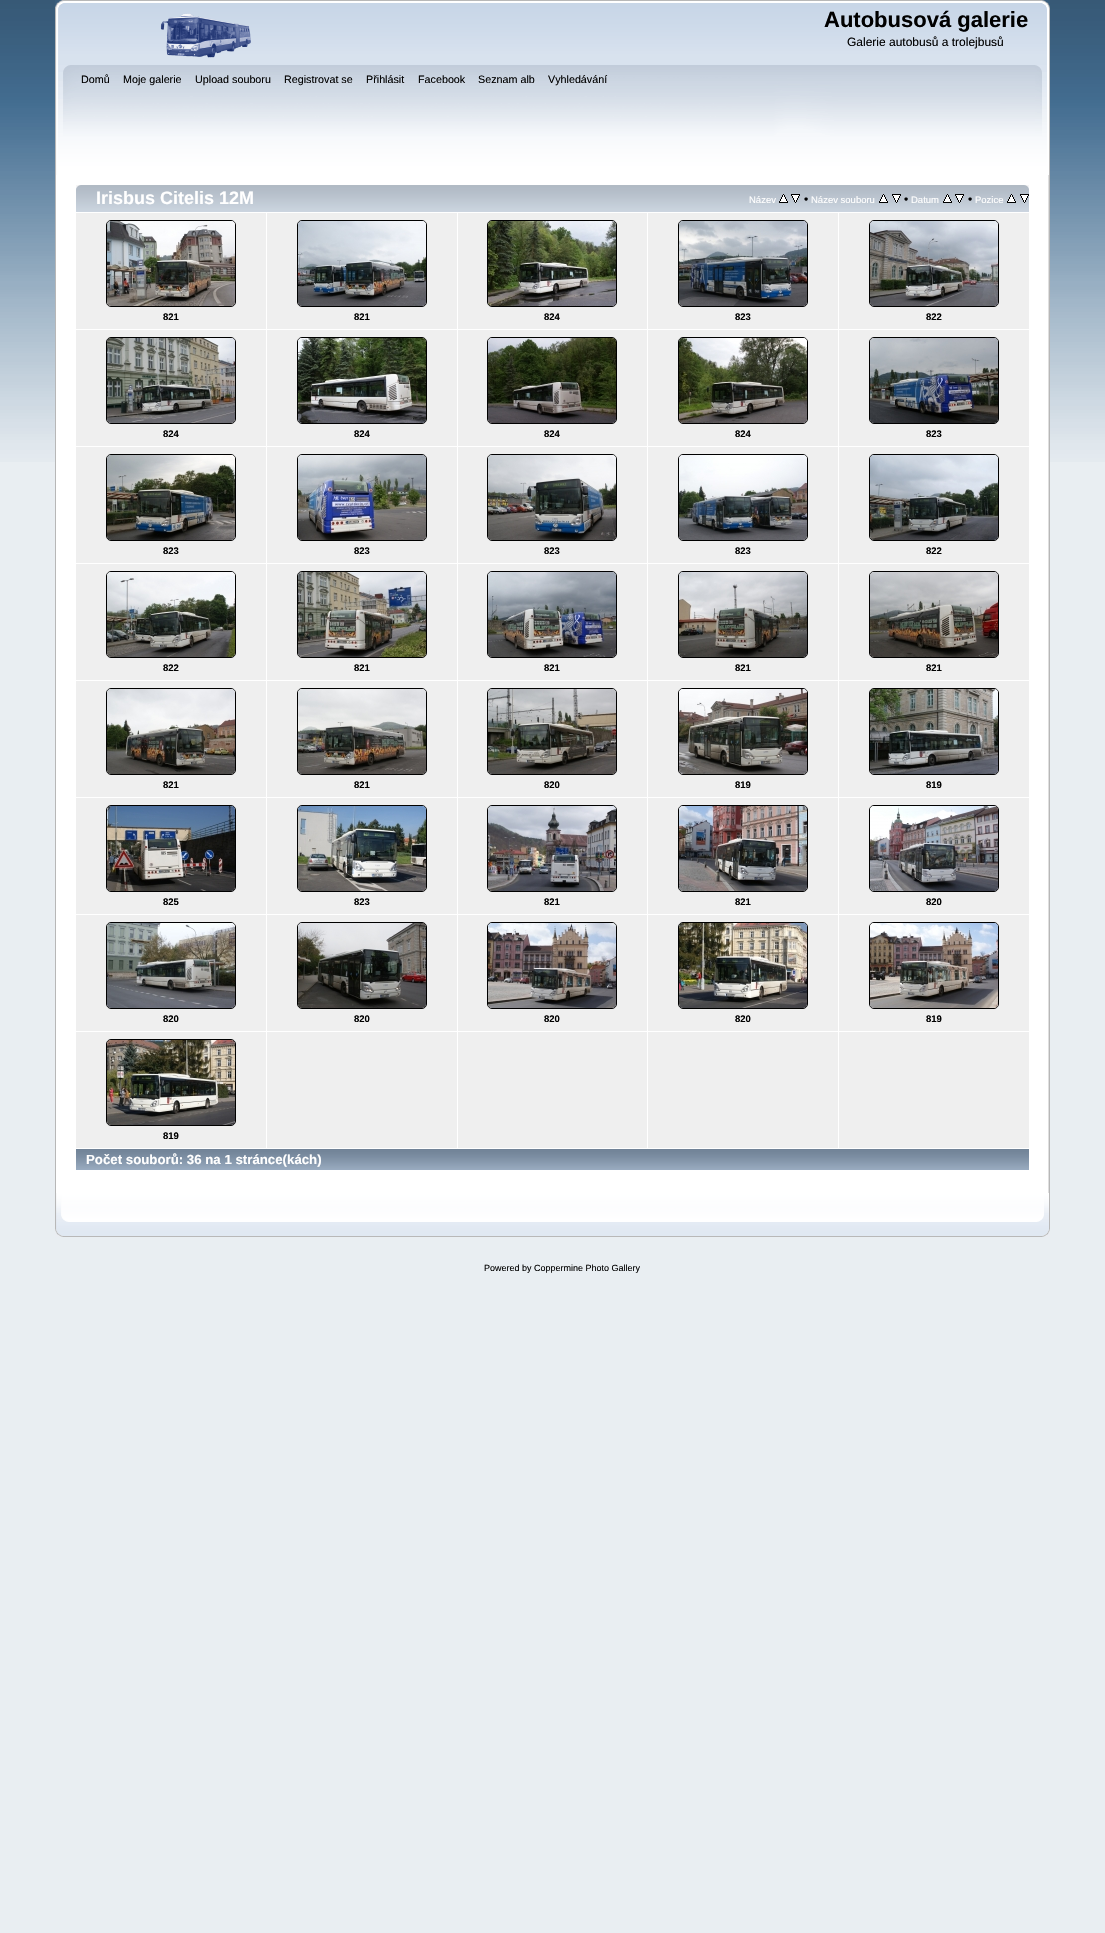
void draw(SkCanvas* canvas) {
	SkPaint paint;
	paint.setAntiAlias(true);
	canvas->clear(0xffe9eef2);
	canvas->drawImageRect(SkImages::DeferredFromEncodedData(SkData::MakeFromFileName("img1.png")), SkRect::MakeXYWH(0, 0, 1105, 462), SkSamplingOptions());
	canvas->drawImageRect(SkImages::DeferredFromEncodedData(SkData::MakeFromFileName("img2.png")), SkRect::MakeXYWH(55, 0, 987, 65), SkSamplingOptions());
	canvas->drawImageRect(SkImages::DeferredFromEncodedData(SkData::MakeFromFileName("img3.png")), SkRect::MakeXYWH(1042, 0, 8, 65), SkSamplingOptions());
	canvas->drawImageRect(SkImages::DeferredFromEncodedData(SkData::MakeFromFileName("img4.png")), SkRect::MakeXYWH(160, 13, 91, 45), SkSamplingOptions());
	SkFont f1(fontMgr->matchFamilyStyle("Liberation Sans", SkFontStyle::Bold()), 22);
	f1.setSubpixel(true);
	paint.setColor(0xff000000);
	canvas->drawString("Autobusová galerie", 824, 27, f1, paint);
	SkFont f2(fontMgr->matchFamilyStyle("Liberation Sans", SkFontStyle::Normal()), 12);
	f2.setSubpixel(true);
	canvas->drawString("Galerie autobusů a trolejbusů", 847, 46, f2, paint);
	canvas->drawImageRect(SkImages::DeferredFromEncodedData(SkData::MakeFromFileName("img5.png")), SkRect::MakeXYWH(55, 65, 980, 110), SkSamplingOptions());
	canvas->drawImageRect(SkImages::DeferredFromEncodedData(SkData::MakeFromFileName("img6.png")), SkRect::MakeXYWH(1035, 65, 15, 110), SkSamplingOptions());
	SkFont f3(fontMgr->matchFamilyStyle("Liberation Sans", SkFontStyle::Normal()), 10.75);
	f3.setSubpixel(true);
	canvas->drawString("Domů", 81, 83, f3, paint);
	canvas->drawString("Moje galerie", 123, 83, f3, paint);
	canvas->drawString("Upload souboru", 195, 83, f3, paint);
	canvas->drawString("Registrovat se", 284, 83, f3, paint);
	canvas->drawString("Přihlásit", 366, 83, f3, paint);
	canvas->drawString("Facebook", 418, 83, f3, paint);
	canvas->drawString("Seznam alb", 478, 83, f3, paint);
	canvas->drawString("Vyhledávání", 548, 83, f3, paint);
	paint.setColor(0xffffffff);
	canvas->drawRect(SkRect::MakeXYWH(56, 175, 992, 1018), paint);
	paint.setColor(0xffb7b7b7);
	canvas->drawRect(SkRect::MakeXYWH(55, 175, 1, 1018), paint);
	canvas->drawImageRect(SkImages::DeferredFromEncodedData(SkData::MakeFromFileName("img7.png")), SkRect::MakeXYWH(1048, 175, 2, 1018), SkSamplingOptions());
	canvas->drawImageRect(SkImages::DeferredFromEncodedData(SkData::MakeFromFileName("img8.png")), SkRect::MakeXYWH(76, 185, 953, 27), SkSamplingOptions());
	canvas->drawImageRect(SkImages::DeferredFromEncodedData(SkData::MakeFromFileName("img9.png")), SkRect::MakeXYWH(1024, 185, 5, 4), SkSamplingOptions());
	SkFont f4(fontMgr->matchFamilyStyle("Liberation Sans", SkFontStyle::Bold()), 18);
	f4.setSubpixel(true);
	paint.setColor(0xffffffff);
	canvas->drawString("Irisbus Citelis 12M", 96, 204, f4, paint);
	SkFont f5(fontMgr->matchFamilyStyle("Liberation Sans", SkFontStyle::Normal()), 9.5);
	f5.setSubpixel(true);
	canvas->drawString("Název", 749, 203, f5, paint);
	canvas->drawImageRect(SkImages::DeferredFromEncodedData(SkData::MakeFromFileName("img10.png")), SkRect::MakeXYWH(779, 194, 9, 9), SkSamplingOptions());
	canvas->drawImageRect(SkImages::DeferredFromEncodedData(SkData::MakeFromFileName("img11.png")), SkRect::MakeXYWH(791, 194, 9, 9), SkSamplingOptions());
	paint.setColor(0xff000000);
	canvas->drawString("•", 804, 203, f2, paint);
	paint.setColor(0xffffffff);
	canvas->drawString("Název souboru", 811, 203, f5, paint);
	canvas->drawImageRect(SkImages::DeferredFromEncodedData(SkData::MakeFromFileName("img10.png")), SkRect::MakeXYWH(879, 194, 9, 9), SkSamplingOptions());
	canvas->drawImageRect(SkImages::DeferredFromEncodedData(SkData::MakeFromFileName("img11.png")), SkRect::MakeXYWH(892, 194, 9, 9), SkSamplingOptions());
	paint.setColor(0xff000000);
	canvas->drawString("•", 904, 203, f2, paint);
	paint.setColor(0xffffffff);
	canvas->drawString("Datum", 911, 203, f5, paint);
	canvas->drawImageRect(SkImages::DeferredFromEncodedData(SkData::MakeFromFileName("img10.png")), SkRect::MakeXYWH(943, 194, 9, 9), SkSamplingOptions());
	canvas->drawImageRect(SkImages::DeferredFromEncodedData(SkData::MakeFromFileName("img11.png")), SkRect::MakeXYWH(955, 194, 9, 9), SkSamplingOptions());
	paint.setColor(0xff000000);
	canvas->drawString("•", 968, 203, f2, paint);
	paint.setColor(0xffffffff);
	canvas->drawString("Pozice", 975, 203, f5, paint);
	canvas->drawImageRect(SkImages::DeferredFromEncodedData(SkData::MakeFromFileName("img10.png")), SkRect::MakeXYWH(1007, 194, 9, 9), SkSamplingOptions());
	canvas->drawImageRect(SkImages::DeferredFromEncodedData(SkData::MakeFromFileName("img11.png")), SkRect::MakeXYWH(1020, 194, 9, 9), SkSamplingOptions());
	paint.setColor(0xffefefef);
	canvas->drawRect(SkRect::MakeXYWH(76, 213, 190, 116), paint);
	paint.setStroke(true);
	paint.setStrokeWidth(1);
	paint.setColor(0xff000000);
	canvas->drawRoundRect(SkRect::MakeXYWH(106.5, 220.5, 129, 86), 4.5, 4.5, paint);
	canvas->drawImageRect(SkImages::DeferredFromEncodedData(SkData::MakeFromFileName("img12.png")), SkRect::MakeXYWH(107, 221, 128, 85), SkSamplingOptions());
	SkFont f6(fontMgr->matchFamilyStyle("Liberation Sans", SkFontStyle::Bold()), 9.5);
	f6.setSubpixel(true);
	paint.setStroke(false);
	canvas->drawString("821", 163, 320, f6, paint);
	paint.setColor(0xffefefef);
	canvas->drawRect(SkRect::MakeXYWH(267, 213, 190, 116), paint);
	paint.setStroke(true);
	paint.setColor(0xff000000);
	canvas->drawRoundRect(SkRect::MakeXYWH(297.5, 220.5, 129, 86), 4.5, 4.5, paint);
	canvas->drawImageRect(SkImages::DeferredFromEncodedData(SkData::MakeFromFileName("img13.png")), SkRect::MakeXYWH(298, 221, 128, 85), SkSamplingOptions());
	paint.setStroke(false);
	canvas->drawString("821", 354, 320, f6, paint);
	paint.setColor(0xffefefef);
	canvas->drawRect(SkRect::MakeXYWH(458, 213, 189, 116), paint);
	paint.setStroke(true);
	paint.setColor(0xff000000);
	canvas->drawRoundRect(SkRect::MakeXYWH(487.5, 220.5, 129, 86), 4.5, 4.5, paint);
	canvas->drawImageRect(SkImages::DeferredFromEncodedData(SkData::MakeFromFileName("img14.png")), SkRect::MakeXYWH(488, 221, 128, 85), SkSamplingOptions());
	paint.setStroke(false);
	canvas->drawString("824", 544, 320, f6, paint);
	paint.setColor(0xffefefef);
	canvas->drawRect(SkRect::MakeXYWH(648, 213, 190, 116), paint);
	paint.setStroke(true);
	paint.setColor(0xff000000);
	canvas->drawRoundRect(SkRect::MakeXYWH(678.5, 220.5, 129, 86), 4.5, 4.5, paint);
	canvas->drawImageRect(SkImages::DeferredFromEncodedData(SkData::MakeFromFileName("img15.png")), SkRect::MakeXYWH(679, 221, 128, 85), SkSamplingOptions());
	paint.setStroke(false);
	canvas->drawString("823", 735, 320, f6, paint);
	paint.setColor(0xffefefef);
	canvas->drawRect(SkRect::MakeXYWH(839, 213, 190, 116), paint);
	paint.setStroke(true);
	paint.setColor(0xff000000);
	canvas->drawRoundRect(SkRect::MakeXYWH(869.5, 220.5, 129, 86), 4.5, 4.5, paint);
	canvas->drawImageRect(SkImages::DeferredFromEncodedData(SkData::MakeFromFileName("img16.png")), SkRect::MakeXYWH(870, 221, 128, 85), SkSamplingOptions());
	paint.setStroke(false);
	canvas->drawString("822", 926, 320, f6, paint);
	paint.setColor(0xffefefef);
	canvas->drawRect(SkRect::MakeXYWH(76, 330, 190, 116), paint);
	paint.setStroke(true);
	paint.setColor(0xff000000);
	canvas->drawRoundRect(SkRect::MakeXYWH(106.5, 337.5, 129, 86), 4.5, 4.5, paint);
	canvas->drawImageRect(SkImages::DeferredFromEncodedData(SkData::MakeFromFileName("img17.png")), SkRect::MakeXYWH(107, 338, 128, 85), SkSamplingOptions());
	paint.setStroke(false);
	canvas->drawString("824", 163, 437, f6, paint);
	paint.setColor(0xffefefef);
	canvas->drawRect(SkRect::MakeXYWH(267, 330, 190, 116), paint);
	paint.setStroke(true);
	paint.setColor(0xff000000);
	canvas->drawRoundRect(SkRect::MakeXYWH(297.5, 337.5, 129, 86), 4.5, 4.5, paint);
	canvas->drawImageRect(SkImages::DeferredFromEncodedData(SkData::MakeFromFileName("img18.png")), SkRect::MakeXYWH(298, 338, 128, 85), SkSamplingOptions());
	paint.setStroke(false);
	canvas->drawString("824", 354, 437, f6, paint);
	paint.setColor(0xffefefef);
	canvas->drawRect(SkRect::MakeXYWH(458, 330, 189, 116), paint);
	paint.setStroke(true);
	paint.setColor(0xff000000);
	canvas->drawRoundRect(SkRect::MakeXYWH(487.5, 337.5, 129, 86), 4.5, 4.5, paint);
	canvas->drawImageRect(SkImages::DeferredFromEncodedData(SkData::MakeFromFileName("img19.png")), SkRect::MakeXYWH(488, 338, 128, 85), SkSamplingOptions());
	paint.setStroke(false);
	canvas->drawString("824", 544, 437, f6, paint);
	paint.setColor(0xffefefef);
	canvas->drawRect(SkRect::MakeXYWH(648, 330, 190, 116), paint);
	paint.setStroke(true);
	paint.setColor(0xff000000);
	canvas->drawRoundRect(SkRect::MakeXYWH(678.5, 337.5, 129, 86), 4.5, 4.5, paint);
	canvas->drawImageRect(SkImages::DeferredFromEncodedData(SkData::MakeFromFileName("img20.png")), SkRect::MakeXYWH(679, 338, 128, 85), SkSamplingOptions());
	paint.setStroke(false);
	canvas->drawString("824", 735, 437, f6, paint);
	paint.setColor(0xffefefef);
	canvas->drawRect(SkRect::MakeXYWH(839, 330, 190, 116), paint);
	paint.setStroke(true);
	paint.setColor(0xff000000);
	canvas->drawRoundRect(SkRect::MakeXYWH(869.5, 337.5, 129, 86), 4.5, 4.5, paint);
	canvas->drawImageRect(SkImages::DeferredFromEncodedData(SkData::MakeFromFileName("img21.png")), SkRect::MakeXYWH(870, 338, 128, 85), SkSamplingOptions());
	paint.setStroke(false);
	canvas->drawString("823", 926, 437, f6, paint);
	paint.setColor(0xffefefef);
	canvas->drawRect(SkRect::MakeXYWH(76, 447, 190, 116), paint);
	paint.setStroke(true);
	paint.setColor(0xff000000);
	canvas->drawRoundRect(SkRect::MakeXYWH(106.5, 454.5, 129, 86), 4.5, 4.5, paint);
	canvas->drawImageRect(SkImages::DeferredFromEncodedData(SkData::MakeFromFileName("img22.png")), SkRect::MakeXYWH(107, 455, 128, 85), SkSamplingOptions());
	paint.setStroke(false);
	canvas->drawString("823", 163, 554, f6, paint);
	paint.setColor(0xffefefef);
	canvas->drawRect(SkRect::MakeXYWH(267, 447, 190, 116), paint);
	paint.setStroke(true);
	paint.setColor(0xff000000);
	canvas->drawRoundRect(SkRect::MakeXYWH(297.5, 454.5, 129, 86), 4.5, 4.5, paint);
	canvas->drawImageRect(SkImages::DeferredFromEncodedData(SkData::MakeFromFileName("img23.png")), SkRect::MakeXYWH(298, 455, 128, 85), SkSamplingOptions());
	paint.setStroke(false);
	canvas->drawString("823", 354, 554, f6, paint);
	paint.setColor(0xffefefef);
	canvas->drawRect(SkRect::MakeXYWH(458, 447, 189, 116), paint);
	paint.setStroke(true);
	paint.setColor(0xff000000);
	canvas->drawRoundRect(SkRect::MakeXYWH(487.5, 454.5, 129, 86), 4.5, 4.5, paint);
	canvas->drawImageRect(SkImages::DeferredFromEncodedData(SkData::MakeFromFileName("img24.png")), SkRect::MakeXYWH(488, 455, 128, 85), SkSamplingOptions());
	paint.setStroke(false);
	canvas->drawString("823", 544, 554, f6, paint);
	paint.setColor(0xffefefef);
	canvas->drawRect(SkRect::MakeXYWH(648, 447, 190, 116), paint);
	paint.setStroke(true);
	paint.setColor(0xff000000);
	canvas->drawRoundRect(SkRect::MakeXYWH(678.5, 454.5, 129, 86), 4.5, 4.5, paint);
	canvas->drawImageRect(SkImages::DeferredFromEncodedData(SkData::MakeFromFileName("img25.png")), SkRect::MakeXYWH(679, 455, 128, 85), SkSamplingOptions());
	paint.setStroke(false);
	canvas->drawString("823", 735, 554, f6, paint);
	paint.setColor(0xffefefef);
	canvas->drawRect(SkRect::MakeXYWH(839, 447, 190, 116), paint);
	paint.setStroke(true);
	paint.setColor(0xff000000);
	canvas->drawRoundRect(SkRect::MakeXYWH(869.5, 454.5, 129, 86), 4.5, 4.5, paint);
	canvas->drawImageRect(SkImages::DeferredFromEncodedData(SkData::MakeFromFileName("img26.png")), SkRect::MakeXYWH(870, 455, 128, 85), SkSamplingOptions());
	paint.setStroke(false);
	canvas->drawString("822", 926, 554, f6, paint);
	paint.setColor(0xffefefef);
	canvas->drawRect(SkRect::MakeXYWH(76, 564, 190, 116), paint);
	paint.setStroke(true);
	paint.setColor(0xff000000);
	canvas->drawRoundRect(SkRect::MakeXYWH(106.5, 571.5, 129, 86), 4.5, 4.5, paint);
	canvas->drawImageRect(SkImages::DeferredFromEncodedData(SkData::MakeFromFileName("img27.png")), SkRect::MakeXYWH(107, 572, 128, 85), SkSamplingOptions());
	paint.setStroke(false);
	canvas->drawString("822", 163, 671, f6, paint);
	paint.setColor(0xffefefef);
	canvas->drawRect(SkRect::MakeXYWH(267, 564, 190, 116), paint);
	paint.setStroke(true);
	paint.setColor(0xff000000);
	canvas->drawRoundRect(SkRect::MakeXYWH(297.5, 571.5, 129, 86), 4.5, 4.5, paint);
	canvas->drawImageRect(SkImages::DeferredFromEncodedData(SkData::MakeFromFileName("img28.png")), SkRect::MakeXYWH(298, 572, 128, 85), SkSamplingOptions());
	paint.setStroke(false);
	canvas->drawString("821", 354, 671, f6, paint);
	paint.setColor(0xffefefef);
	canvas->drawRect(SkRect::MakeXYWH(458, 564, 189, 116), paint);
	paint.setStroke(true);
	paint.setColor(0xff000000);
	canvas->drawRoundRect(SkRect::MakeXYWH(487.5, 571.5, 129, 86), 4.5, 4.5, paint);
	canvas->drawImageRect(SkImages::DeferredFromEncodedData(SkData::MakeFromFileName("img29.png")), SkRect::MakeXYWH(488, 572, 128, 85), SkSamplingOptions());
	paint.setStroke(false);
	canvas->drawString("821", 544, 671, f6, paint);
	paint.setColor(0xffefefef);
	canvas->drawRect(SkRect::MakeXYWH(648, 564, 190, 116), paint);
	paint.setStroke(true);
	paint.setColor(0xff000000);
	canvas->drawRoundRect(SkRect::MakeXYWH(678.5, 571.5, 129, 86), 4.5, 4.5, paint);
	canvas->drawImageRect(SkImages::DeferredFromEncodedData(SkData::MakeFromFileName("img30.png")), SkRect::MakeXYWH(679, 572, 128, 85), SkSamplingOptions());
	paint.setStroke(false);
	canvas->drawString("821", 735, 671, f6, paint);
	paint.setColor(0xffefefef);
	canvas->drawRect(SkRect::MakeXYWH(839, 564, 190, 116), paint);
	paint.setStroke(true);
	paint.setColor(0xff000000);
	canvas->drawRoundRect(SkRect::MakeXYWH(869.5, 571.5, 129, 86), 4.5, 4.5, paint);
	canvas->drawImageRect(SkImages::DeferredFromEncodedData(SkData::MakeFromFileName("img31.png")), SkRect::MakeXYWH(870, 572, 128, 85), SkSamplingOptions());
	paint.setStroke(false);
	canvas->drawString("821", 926, 671, f6, paint);
	paint.setColor(0xffefefef);
	canvas->drawRect(SkRect::MakeXYWH(76, 681, 190, 116), paint);
	paint.setStroke(true);
	paint.setColor(0xff000000);
	canvas->drawRoundRect(SkRect::MakeXYWH(106.5, 688.5, 129, 86), 4.5, 4.5, paint);
	canvas->drawImageRect(SkImages::DeferredFromEncodedData(SkData::MakeFromFileName("img32.png")), SkRect::MakeXYWH(107, 689, 128, 85), SkSamplingOptions());
	paint.setStroke(false);
	canvas->drawString("821", 163, 788, f6, paint);
	paint.setColor(0xffefefef);
	canvas->drawRect(SkRect::MakeXYWH(267, 681, 190, 116), paint);
	paint.setStroke(true);
	paint.setColor(0xff000000);
	canvas->drawRoundRect(SkRect::MakeXYWH(297.5, 688.5, 129, 86), 4.5, 4.5, paint);
	canvas->drawImageRect(SkImages::DeferredFromEncodedData(SkData::MakeFromFileName("img33.png")), SkRect::MakeXYWH(298, 689, 128, 85), SkSamplingOptions());
	paint.setStroke(false);
	canvas->drawString("821", 354, 788, f6, paint);
	paint.setColor(0xffefefef);
	canvas->drawRect(SkRect::MakeXYWH(458, 681, 189, 116), paint);
	paint.setStroke(true);
	paint.setColor(0xff000000);
	canvas->drawRoundRect(SkRect::MakeXYWH(487.5, 688.5, 129, 86), 4.5, 4.5, paint);
	canvas->drawImageRect(SkImages::DeferredFromEncodedData(SkData::MakeFromFileName("img34.png")), SkRect::MakeXYWH(488, 689, 128, 85), SkSamplingOptions());
	paint.setStroke(false);
	canvas->drawString("820", 544, 788, f6, paint);
	paint.setColor(0xffefefef);
	canvas->drawRect(SkRect::MakeXYWH(648, 681, 190, 116), paint);
	paint.setStroke(true);
	paint.setColor(0xff000000);
	canvas->drawRoundRect(SkRect::MakeXYWH(678.5, 688.5, 129, 86), 4.5, 4.5, paint);
	canvas->drawImageRect(SkImages::DeferredFromEncodedData(SkData::MakeFromFileName("img35.png")), SkRect::MakeXYWH(679, 689, 128, 85), SkSamplingOptions());
	paint.setStroke(false);
	canvas->drawString("819", 735, 788, f6, paint);
	paint.setColor(0xffefefef);
	canvas->drawRect(SkRect::MakeXYWH(839, 681, 190, 116), paint);
	paint.setStroke(true);
	paint.setColor(0xff000000);
	canvas->drawRoundRect(SkRect::MakeXYWH(869.5, 688.5, 129, 86), 4.5, 4.5, paint);
	canvas->drawImageRect(SkImages::DeferredFromEncodedData(SkData::MakeFromFileName("img36.png")), SkRect::MakeXYWH(870, 689, 128, 85), SkSamplingOptions());
	paint.setStroke(false);
	canvas->drawString("819", 926, 788, f6, paint);
	paint.setColor(0xffefefef);
	canvas->drawRect(SkRect::MakeXYWH(76, 798, 190, 116), paint);
	paint.setStroke(true);
	paint.setColor(0xff000000);
	canvas->drawRoundRect(SkRect::MakeXYWH(106.5, 805.5, 129, 86), 4.5, 4.5, paint);
	canvas->drawImageRect(SkImages::DeferredFromEncodedData(SkData::MakeFromFileName("img37.png")), SkRect::MakeXYWH(107, 806, 128, 85), SkSamplingOptions());
	paint.setStroke(false);
	canvas->drawString("825", 163, 905, f6, paint);
	paint.setColor(0xffefefef);
	canvas->drawRect(SkRect::MakeXYWH(267, 798, 190, 116), paint);
	paint.setStroke(true);
	paint.setColor(0xff000000);
	canvas->drawRoundRect(SkRect::MakeXYWH(297.5, 805.5, 129, 86), 4.5, 4.5, paint);
	canvas->drawImageRect(SkImages::DeferredFromEncodedData(SkData::MakeFromFileName("img38.png")), SkRect::MakeXYWH(298, 806, 128, 85), SkSamplingOptions());
	paint.setStroke(false);
	canvas->drawString("823", 354, 905, f6, paint);
	paint.setColor(0xffefefef);
	canvas->drawRect(SkRect::MakeXYWH(458, 798, 189, 116), paint);
	paint.setStroke(true);
	paint.setColor(0xff000000);
	canvas->drawRoundRect(SkRect::MakeXYWH(487.5, 805.5, 129, 86), 4.5, 4.5, paint);
	canvas->drawImageRect(SkImages::DeferredFromEncodedData(SkData::MakeFromFileName("img39.png")), SkRect::MakeXYWH(488, 806, 128, 85), SkSamplingOptions());
	paint.setStroke(false);
	canvas->drawString("821", 544, 905, f6, paint);
	paint.setColor(0xffefefef);
	canvas->drawRect(SkRect::MakeXYWH(648, 798, 190, 116), paint);
	paint.setStroke(true);
	paint.setColor(0xff000000);
	canvas->drawRoundRect(SkRect::MakeXYWH(678.5, 805.5, 129, 86), 4.5, 4.5, paint);
	canvas->drawImageRect(SkImages::DeferredFromEncodedData(SkData::MakeFromFileName("img40.png")), SkRect::MakeXYWH(679, 806, 128, 85), SkSamplingOptions());
	paint.setStroke(false);
	canvas->drawString("821", 735, 905, f6, paint);
	paint.setColor(0xffefefef);
	canvas->drawRect(SkRect::MakeXYWH(839, 798, 190, 116), paint);
	paint.setStroke(true);
	paint.setColor(0xff000000);
	canvas->drawRoundRect(SkRect::MakeXYWH(869.5, 805.5, 129, 86), 4.5, 4.5, paint);
	canvas->drawImageRect(SkImages::DeferredFromEncodedData(SkData::MakeFromFileName("img41.png")), SkRect::MakeXYWH(870, 806, 128, 85), SkSamplingOptions());
	paint.setStroke(false);
	canvas->drawString("820", 926, 905, f6, paint);
	paint.setColor(0xffefefef);
	canvas->drawRect(SkRect::MakeXYWH(76, 915, 190, 116), paint);
	paint.setStroke(true);
	paint.setColor(0xff000000);
	canvas->drawRoundRect(SkRect::MakeXYWH(106.5, 922.5, 129, 86), 4.5, 4.5, paint);
	canvas->drawImageRect(SkImages::DeferredFromEncodedData(SkData::MakeFromFileName("img42.png")), SkRect::MakeXYWH(107, 923, 128, 85), SkSamplingOptions());
	paint.setStroke(false);
	canvas->drawString("820", 163, 1022, f6, paint);
	paint.setColor(0xffefefef);
	canvas->drawRect(SkRect::MakeXYWH(267, 915, 190, 116), paint);
	paint.setStroke(true);
	paint.setColor(0xff000000);
	canvas->drawRoundRect(SkRect::MakeXYWH(297.5, 922.5, 129, 86), 4.5, 4.5, paint);
	canvas->drawImageRect(SkImages::DeferredFromEncodedData(SkData::MakeFromFileName("img43.png")), SkRect::MakeXYWH(298, 923, 128, 85), SkSamplingOptions());
	paint.setStroke(false);
	canvas->drawString("820", 354, 1022, f6, paint);
	paint.setColor(0xffefefef);
	canvas->drawRect(SkRect::MakeXYWH(458, 915, 189, 116), paint);
	paint.setStroke(true);
	paint.setColor(0xff000000);
	canvas->drawRoundRect(SkRect::MakeXYWH(487.5, 922.5, 129, 86), 4.5, 4.5, paint);
	canvas->drawImageRect(SkImages::DeferredFromEncodedData(SkData::MakeFromFileName("img44.png")), SkRect::MakeXYWH(488, 923, 128, 85), SkSamplingOptions());
	paint.setStroke(false);
	canvas->drawString("820", 544, 1022, f6, paint);
	paint.setColor(0xffefefef);
	canvas->drawRect(SkRect::MakeXYWH(648, 915, 190, 116), paint);
	paint.setStroke(true);
	paint.setColor(0xff000000);
	canvas->drawRoundRect(SkRect::MakeXYWH(678.5, 922.5, 129, 86), 4.5, 4.5, paint);
	canvas->drawImageRect(SkImages::DeferredFromEncodedData(SkData::MakeFromFileName("img45.png")), SkRect::MakeXYWH(679, 923, 128, 85), SkSamplingOptions());
	paint.setStroke(false);
	canvas->drawString("820", 735, 1022, f6, paint);
	paint.setColor(0xffefefef);
	canvas->drawRect(SkRect::MakeXYWH(839, 915, 190, 116), paint);
	paint.setStroke(true);
	paint.setColor(0xff000000);
	canvas->drawRoundRect(SkRect::MakeXYWH(869.5, 922.5, 129, 86), 4.5, 4.5, paint);
	canvas->drawImageRect(SkImages::DeferredFromEncodedData(SkData::MakeFromFileName("img46.png")), SkRect::MakeXYWH(870, 923, 128, 85), SkSamplingOptions());
	paint.setStroke(false);
	canvas->drawString("819", 926, 1022, f6, paint);
	paint.setColor(0xffefefef);
	canvas->drawRect(SkRect::MakeXYWH(76, 1032, 190, 116), paint);
	paint.setStroke(true);
	paint.setColor(0xff000000);
	canvas->drawRoundRect(SkRect::MakeXYWH(106.5, 1039.5, 129, 86), 4.5, 4.5, paint);
	canvas->drawImageRect(SkImages::DeferredFromEncodedData(SkData::MakeFromFileName("img47.png")), SkRect::MakeXYWH(107, 1040, 128, 85), SkSamplingOptions());
	paint.setStroke(false);
	canvas->drawString("819", 163, 1139, f6, paint);
	paint.setColor(0xffefefef);
	canvas->drawRect(SkRect::MakeXYWH(267, 1032, 190, 116), paint);
	canvas->drawRect(SkRect::MakeXYWH(458, 1032, 189, 116), paint);
	canvas->drawRect(SkRect::MakeXYWH(648, 1032, 190, 116), paint);
	canvas->drawRect(SkRect::MakeXYWH(839, 1032, 190, 116), paint);
	canvas->drawImageRect(SkImages::DeferredFromEncodedData(SkData::MakeFromFileName("img48.png")), SkRect::MakeXYWH(76, 1149, 953, 21), SkSamplingOptions());
	SkFont f7(fontMgr->matchFamilyStyle("Liberation Sans", SkFontStyle::Bold()), 13.25);
	f7.setSubpixel(true);
	paint.setColor(0xffffffff);
	canvas->drawString("Počet souborů: 36 na 1 stránce(kách)", 86, 1164, f7, paint);
	canvas->drawImageRect(SkImages::DeferredFromEncodedData(SkData::MakeFromFileName("img49.png")), SkRect::MakeXYWH(55, 1193, 982, 44), SkSamplingOptions());
	canvas->drawImageRect(SkImages::DeferredFromEncodedData(SkData::MakeFromFileName("img50.png")), SkRect::MakeXYWH(1037, 1193, 13, 44), SkSamplingOptions());
	SkFont f8(fontMgr->matchFamilyStyle("Liberation Sans", SkFontStyle::Normal()), 9);
	f8.setSubpixel(true);
	paint.setColor(0xff000000);
	canvas->drawString("Powered by Coppermine Photo Gallery", 484, 1271, f8, paint);
}
